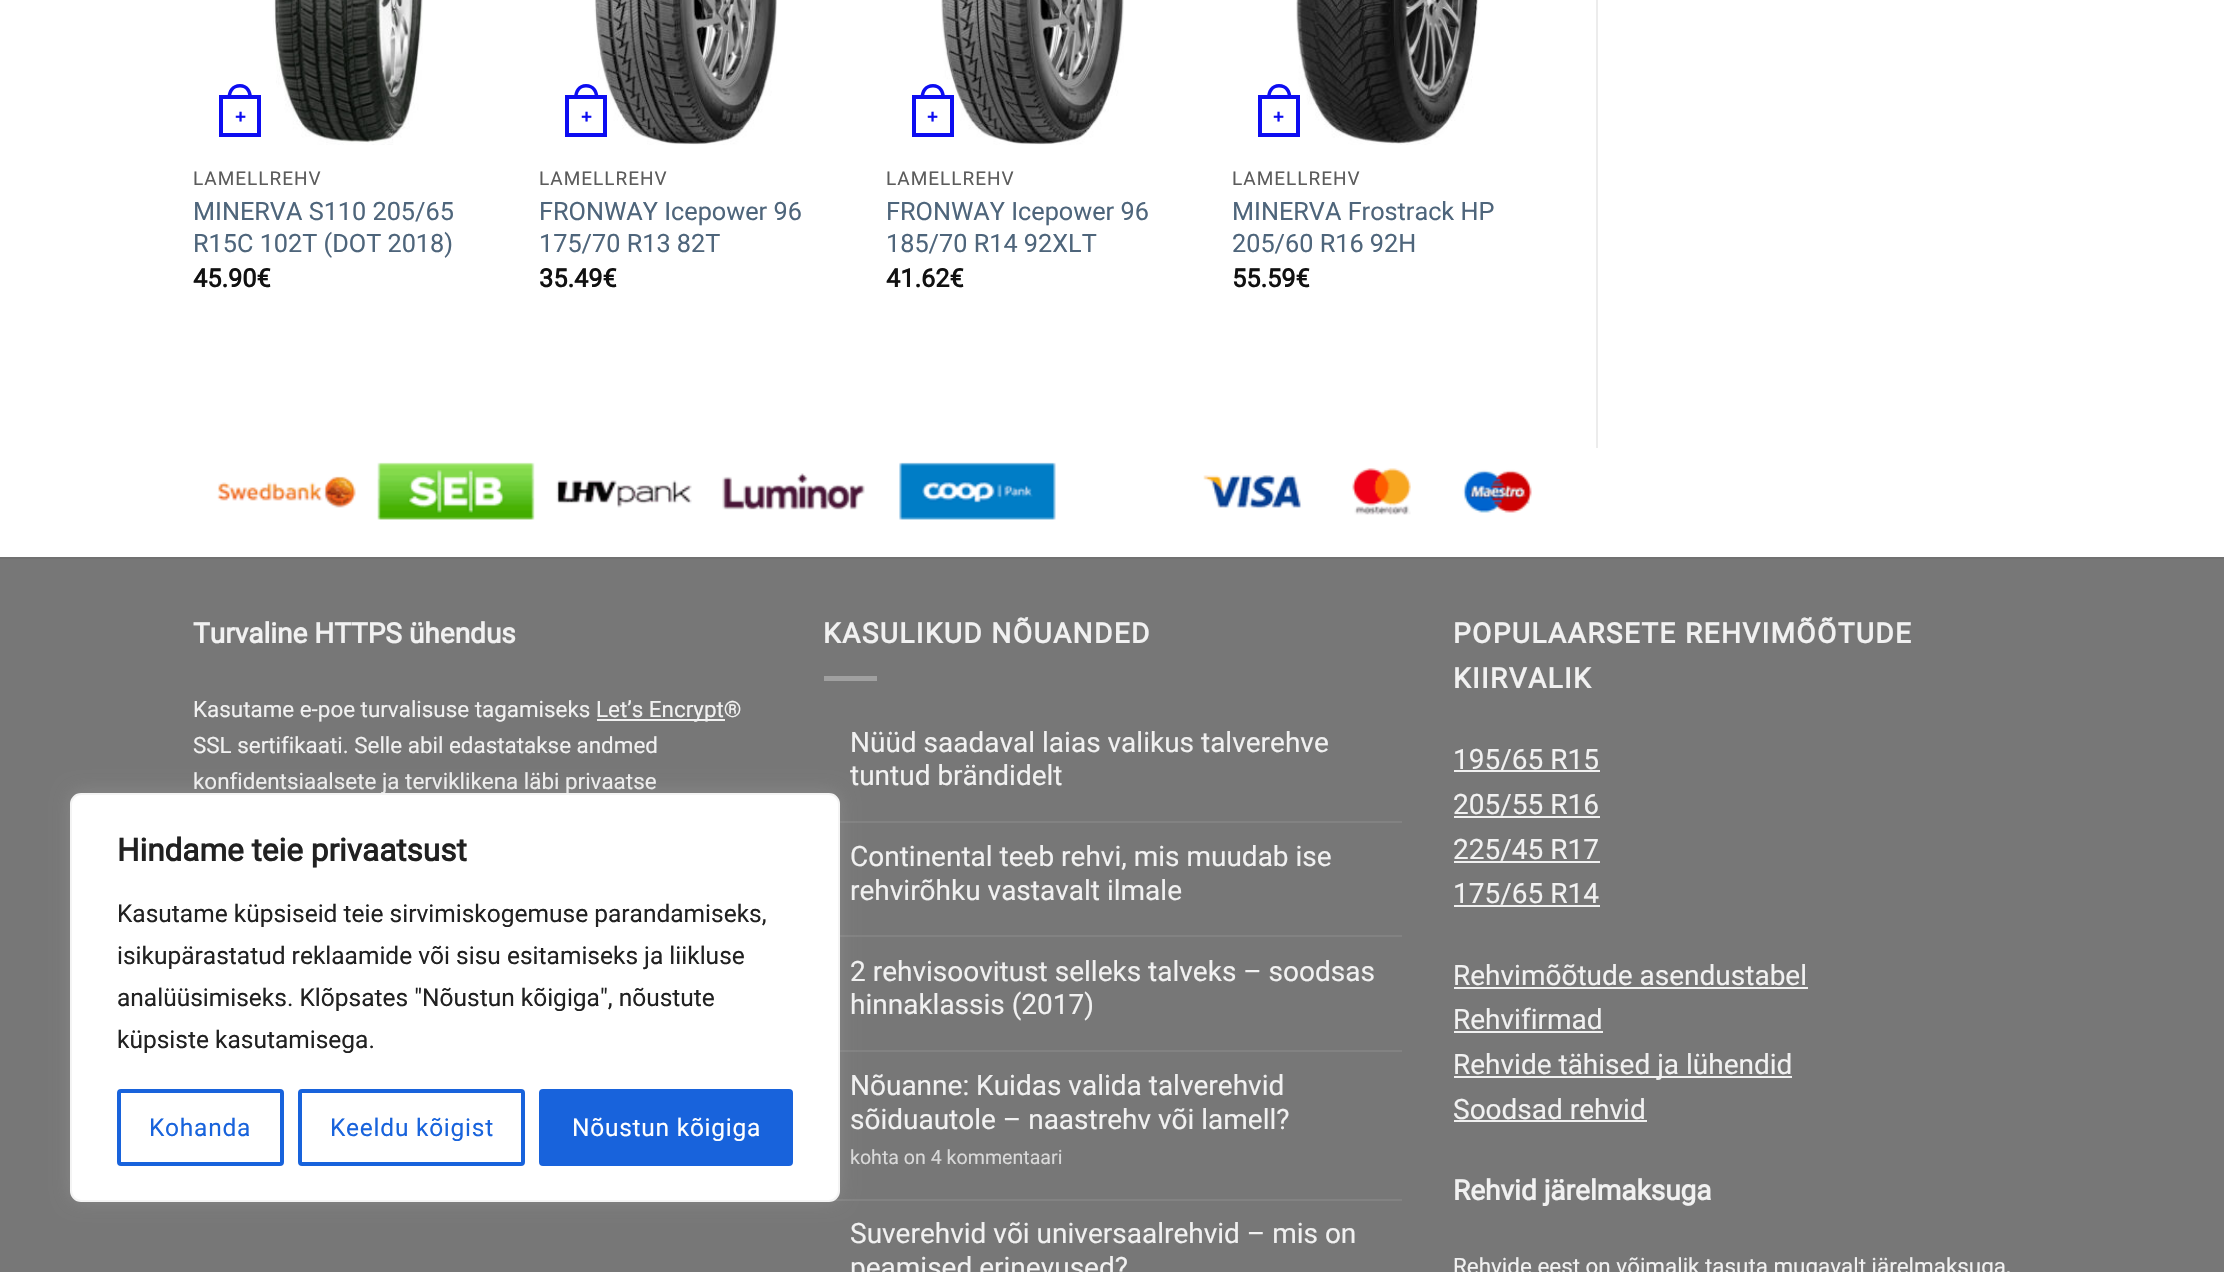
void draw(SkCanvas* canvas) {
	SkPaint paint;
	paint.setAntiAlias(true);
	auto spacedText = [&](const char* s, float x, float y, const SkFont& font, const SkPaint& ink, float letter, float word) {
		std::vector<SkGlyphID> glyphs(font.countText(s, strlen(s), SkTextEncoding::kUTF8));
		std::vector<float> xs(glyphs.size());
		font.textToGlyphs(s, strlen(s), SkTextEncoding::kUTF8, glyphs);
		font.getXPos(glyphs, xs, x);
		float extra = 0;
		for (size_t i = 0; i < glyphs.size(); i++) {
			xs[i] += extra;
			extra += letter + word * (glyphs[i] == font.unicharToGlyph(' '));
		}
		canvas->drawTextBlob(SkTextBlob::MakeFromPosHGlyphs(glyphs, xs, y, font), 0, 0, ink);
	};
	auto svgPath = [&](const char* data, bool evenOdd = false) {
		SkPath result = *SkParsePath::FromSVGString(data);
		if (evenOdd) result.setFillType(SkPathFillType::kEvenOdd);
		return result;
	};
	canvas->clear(0xffffffff);
	paint.setColor(0xffececec);
	canvas->drawRect(SkRect::MakeXYWH(1596, 0, 2, 448), paint);
	paint.setStroke(true);
	paint.setStrokeWidth(4);
	paint.setColor(0xff0d0df1);
	canvas->drawRect(SkRect::MakeXYWH(221, 97, 38, 38), paint);
	paint.setStroke(false);
	canvas->drawPath(svgPath("M240 84C248 84 252 90.5 252 98H227.5C227.5 90.5 231.5 84 240 84ZM240 87.5C246 87.5 248.5 92.5 248.5 98H231C231 92.5 233.5 87.5 240 87.5Z", true), paint);
	SkFont f1(fontMgr->matchFamilyStyle("Liberation Sans", SkFontStyle::Bold()), 19);
	f1.setSubpixel(true);
	canvas->drawString("+", 235, 123, f1, paint);
	canvas->drawImageRect(SkImages::DeferredFromEncodedData(SkData::MakeFromFileName("img1.png")), SkRect::MakeXYWH(273, 0, 150, 145), SkSamplingOptions());
	SkFont f2(fontMgr->matchFamilyStyle("Roboto", SkFontStyle::Normal()), 19);
	f2.setSubpixel(true);
	paint.setColor(0xff5c5c5c);
	spacedText("LAMELLREHV", 193, 185, f2, paint, 1, 0);
	SkFont f3(fontMgr->matchFamilyStyle("Roboto", SkFontStyle::Normal()), 25.25);
	f3.setSubpixel(true);
	paint.setColor(0xff4e657b);
	canvas->drawString("MINERVA S110 205/65", 193, 220, f3, paint);
	canvas->drawString("R15C 102T (DOT 2018)", 193, 252, f3, paint);
	SkFont f4(fontMgr->matchFamilyStyle("Roboto", SkFontStyle::Bold()), 25.25);
	f4.setSubpixel(true);
	paint.setColor(0xff111111);
	canvas->drawString("45.90€", 193, 287, f4, paint);
	canvas->drawImageRect(SkImages::DeferredFromEncodedData(SkData::MakeFromFileName("img2.png")), SkRect::MakeXYWH(594, 0, 183, 145), SkSamplingOptions());
	paint.setStroke(true);
	paint.setColor(0xf20000f0);
	canvas->drawRect(SkRect::MakeXYWH(567, 97, 38, 38), paint);
	paint.setStroke(false);
	paint.setColor(0xff0d0df1);
	canvas->drawPath(svgPath("M586 84C594.5 84 598.5 90.5 598.5 98H574C574 90.5 578 84 586 84ZM586 87.5C592.5 87.5 595 92.5 595 98H577.5C577.5 92.5 580 87.5 586 87.5Z", true), paint);
	canvas->drawString("+", 581, 123, f1, paint);
	paint.setColor(0xff5c5c5c);
	spacedText("LAMELLREHV", 539, 185, f2, paint, 1, 0);
	paint.setColor(0xff4e657b);
	canvas->drawString("FRONWAY Icepower 96", 539, 220, f3, paint);
	canvas->drawString("175/70 R13 82T", 539, 252, f3, paint);
	paint.setColor(0xff111111);
	canvas->drawString("35.49€", 539, 287, f4, paint);
	canvas->drawImageRect(SkImages::DeferredFromEncodedData(SkData::MakeFromFileName("img3.png")), SkRect::MakeXYWH(941, 0, 183, 145), SkSamplingOptions());
	paint.setStroke(true);
	paint.setColor(0xf20000f0);
	canvas->drawRect(SkRect::MakeXYWH(914, 97, 38, 38), paint);
	paint.setStroke(false);
	paint.setColor(0xff0d0df1);
	canvas->drawPath(svgPath("M933 84C941 84 945 90.5 945 98H920.5C920.5 90.5 924.5 84 933 84ZM933 87.5C939 87.5 941.5 92.5 941.5 98H924C924 92.5 926.5 87.5 933 87.5Z", true), paint);
	canvas->drawString("+", 927, 123, f1, paint);
	paint.setColor(0xff5c5c5c);
	spacedText("LAMELLREHV", 886, 185, f2, paint, 1, 0);
	paint.setColor(0xff4e657b);
	canvas->drawString("FRONWAY Icepower 96", 886, 220, f3, paint);
	canvas->drawString("185/70 R14 92XLT", 886, 252, f3, paint);
	paint.setColor(0xff111111);
	canvas->drawString("41.62€", 886, 287, f4, paint);
	canvas->drawImageRect(SkImages::DeferredFromEncodedData(SkData::MakeFromFileName("img4.png")), SkRect::MakeXYWH(1296, 0, 184, 145), SkSamplingOptions());
	paint.setStroke(true);
	paint.setColor(0xff0d0df1);
	canvas->drawRect(SkRect::MakeXYWH(1260, 97, 38, 38), paint);
	paint.setStroke(false);
	canvas->drawPath(svgPath("M1279 84C1287.5 84 1291.5 90.5 1291.5 98H1267C1267 90.5 1271 84 1279 84ZM1279 87.5C1285.5 87.5 1288 92.5 1288 98H1270.5C1270.5 92.5 1273 87.5 1279 87.5Z", true), paint);
	canvas->drawString("+", 1273, 123, f1, paint);
	paint.setColor(0xff5c5c5c);
	spacedText("LAMELLREHV", 1232, 185, f2, paint, 1, 0);
	paint.setColor(0xff4e657b);
	canvas->drawString("MINERVA Frostrack HP", 1232, 220, f3, paint);
	canvas->drawString("205/60 R16 92H", 1232, 252, f3, paint);
	paint.setColor(0xff111111);
	canvas->drawString("55.59€", 1232, 287, f4, paint);
	canvas->drawImageRect(SkImages::DeferredFromEncodedData(SkData::MakeFromFileName("img5.png")), SkRect::MakeXYWH(217, 462, 1315, 58), SkSamplingOptions());
	paint.setColor(0xff777777);
	canvas->drawRect(SkRect::MakeXYWH(0, 559, 2224, 713), paint);
	paint.setColor(0xff717171);
	canvas->drawRect(SkRect::MakeXYWH(0, 557, 2224, 2), paint);
	SkFont f5(fontMgr->matchFamilyStyle("Roboto", SkFontStyle::Bold()), 28);
	f5.setSubpixel(true);
	paint.setColor(0xfff1f1f1);
	canvas->drawString("Turvaline HTTPS ühendus", 193, 643, f5, paint);
	SkFont f6(fontMgr->matchFamilyStyle("Roboto", SkFontStyle::Normal()), 22.4);
	f6.setSubpixel(true);
	canvas->drawString("Kasutame e-poe turvalisuse tagamiseks", 193, 717, f6, paint);
	canvas->drawRect(SkRect::MakeXYWH(597, 719, 128, 2), paint);
	canvas->drawString("Let’s Encrypt®", 596, 717, f6, paint);
	canvas->drawString("SSL sertifikaati. Selle abil edastatakse andmed", 193, 753, f6, paint);
	canvas->drawString("konfidentsiaalsete ja terviklikena läbi privaatse", 193, 789, f6, paint);
	spacedText("KASULIKUD NÕUANDED", 823, 643, f5, paint, 1.4, 0);
	paint.setColor(0xffa0a0a0);
	canvas->drawRect(SkRect::MakeXYWH(824, 676, 53, 5), paint);
	SkFont f7(fontMgr->matchFamilyStyle("Roboto", SkFontStyle::Normal()), 28);
	f7.setSubpixel(true);
	paint.setColor(0xfff1f1f1);
	canvas->drawString("Nüüd saadaval laias valikus talverehve", 850, 752, f7, paint);
	canvas->drawString("tuntud brändidelt", 850, 785, f7, paint);
	paint.setColor(0xff828282);
	canvas->drawRect(SkRect::MakeXYWH(840, 821, 562, 2), paint);
	paint.setColor(0xfff1f1f1);
	canvas->drawString("Continental teeb rehvi, mis muudab ise", 850, 866, f7, paint);
	canvas->drawString("rehvirõhku vastavalt ilmale", 850, 900, f7, paint);
	paint.setColor(0xff828282);
	canvas->drawRect(SkRect::MakeXYWH(840, 935, 562, 2), paint);
	paint.setColor(0xfff1f1f1);
	canvas->drawString("2 rehvisoovitust selleks talveks – soodsas", 850, 981, f7, paint);
	canvas->drawString("hinnaklassis (2017)", 850, 1014, f7, paint);
	paint.setColor(0xff828282);
	canvas->drawRect(SkRect::MakeXYWH(840, 1050, 562, 2), paint);
	paint.setColor(0xfff1f1f1);
	canvas->drawString("Nõuanne: Kuidas valida talverehvid", 850, 1095, f7, paint);
	canvas->drawString("sõiduautole – naastrehv või lamell?", 850, 1129, f7, paint);
	SkFont f8(fontMgr->matchFamilyStyle("Roboto", SkFontStyle::Normal()), 19.6);
	f8.setSubpixel(true);
	paint.setColor(0xffd9d9d9);
	canvas->drawString("kohta on 4 kommentaari", 850, 1164, f8, paint);
	paint.setColor(0xff828282);
	canvas->drawRect(SkRect::MakeXYWH(833, 1199, 569, 2), paint);
	paint.setColor(0xfff1f1f1);
	canvas->drawString("Suverehvid või universaalrehvid – mis on", 850, 1243, f7, paint);
	canvas->drawString("peamised erinevused?", 850, 1277, f7, paint);
	spacedText("POPULAARSETE REHVIMÕÕTUDE", 1453, 643, f5, paint, 1.4, 0);
	spacedText("KIIRVALIK", 1453, 688, f5, paint, 1.4, 0);
	canvas->drawRect(SkRect::MakeXYWH(1454, 770, 146, 2), paint);
	canvas->drawString("195/65 R15", 1453, 769, f7, paint);
	canvas->drawString("205/55 R16", 1453, 814, f7, paint);
	canvas->drawRect(SkRect::MakeXYWH(1454, 816, 146, 2), paint);
	canvas->drawString("225/45 R17", 1453, 859, f7, paint);
	canvas->drawRect(SkRect::MakeXYWH(1454, 861, 146, 2), paint);
	canvas->drawString("175/65 R14", 1453, 903, f7, paint);
	canvas->drawRect(SkRect::MakeXYWH(1454, 905, 146, 2), paint);
	canvas->drawString("Rehvimõõtude asendustabel", 1453, 985, f7, paint);
	canvas->drawRect(SkRect::MakeXYWH(1454, 987, 354, 2), paint);
	canvas->drawString("Rehvifirmad", 1453, 1029, f7, paint);
	canvas->drawRect(SkRect::MakeXYWH(1454, 1031, 149, 2), paint);
	canvas->drawRect(SkRect::MakeXYWH(1454, 1076, 338, 2), paint);
	canvas->drawString("Rehvide tähised ja lühendid", 1453, 1074, f7, paint);
	canvas->drawString("Soodsad rehvid", 1453, 1119, f7, paint);
	canvas->drawRect(SkRect::MakeXYWH(1454, 1120, 193, 2), paint);
	canvas->drawString("Rehvid järelmaksuga", 1453, 1200, f5, paint);
	canvas->drawString("Rehvide eest on võimalik tasuta mugavalt järelmaksuga,", 1453, 1274, f6, paint);
	paint.setColor(0x4dacabab);
	paint.setMaskFilter(SkMaskFilter::MakeBlur(kNormal_SkBlurStyle, 9));
	canvas->drawRoundRect(SkRect::MakeXYWH(70, 791, 770, 410), 11, 11, paint);
	paint.setMaskFilter(nullptr);
	paint.setColor(0xffffffff);
	canvas->drawRoundRect(SkRect::MakeXYWH(71, 794, 768, 407), 10, 10, paint);
	paint.setStroke(true);
	paint.setStrokeWidth(2);
	paint.setColor(0xfff4f4f4);
	canvas->drawRoundRect(SkRect::MakeXYWH(71, 794, 768, 407), 10, 10, paint);
	SkFont f9(fontMgr->matchFamilyStyle("Roboto", SkFontStyle::Bold()), 31.5);
	f9.setSubpixel(true);
	paint.setStroke(false);
	paint.setColor(0xff212121);
	canvas->drawString("Hindame teie privaatsust", 117, 861, f9, paint);
	SkFont f10(fontMgr->matchFamilyStyle("Roboto", SkFontStyle::Normal()), 24.5);
	f10.setSubpixel(true);
	canvas->drawString("Kasutame küpsiseid teie sirvimiskogemuse parandamiseks,", 117, 922, f10, paint);
	canvas->drawString("isikupärastatud reklaamide või sisu esitamiseks ja liikluse", 117, 964, f10, paint);
	canvas->drawString("analüüsimiseks. Klõpsates \"Nõustun kõigiga\", nõustute", 117, 1006, f10, paint);
	canvas->drawString("küpsiste kasutamisega.", 117, 1048, f10, paint);
	paint.setStroke(true);
	paint.setStrokeWidth(4);
	paint.setColor(0xff1863dc);
	canvas->drawRoundRect(SkRect::MakeXYWH(119, 1091, 163, 73), 2, 2, paint);
	paint.setStroke(false);
	spacedText("Kohanda", 149, 1136, f10, paint, 0.75, 0);
	paint.setStroke(true);
	canvas->drawRoundRect(SkRect::MakeXYWH(300, 1091, 223, 73), 2, 2, paint);
	paint.setStroke(false);
	spacedText("Keeldu kõigist", 330, 1136, f10, paint, 0.75, 0);
	canvas->drawRoundRect(SkRect::MakeXYWH(541, 1091, 250, 73), 2, 2, paint);
	paint.setStroke(true);
	canvas->drawRoundRect(SkRect::MakeXYWH(541, 1091, 250, 73), 2, 2, paint);
	paint.setStroke(false);
	paint.setColor(0xffffffff);
	spacedText("Nõustun kõigiga", 572, 1136, f10, paint, 0.75, 0);
}
